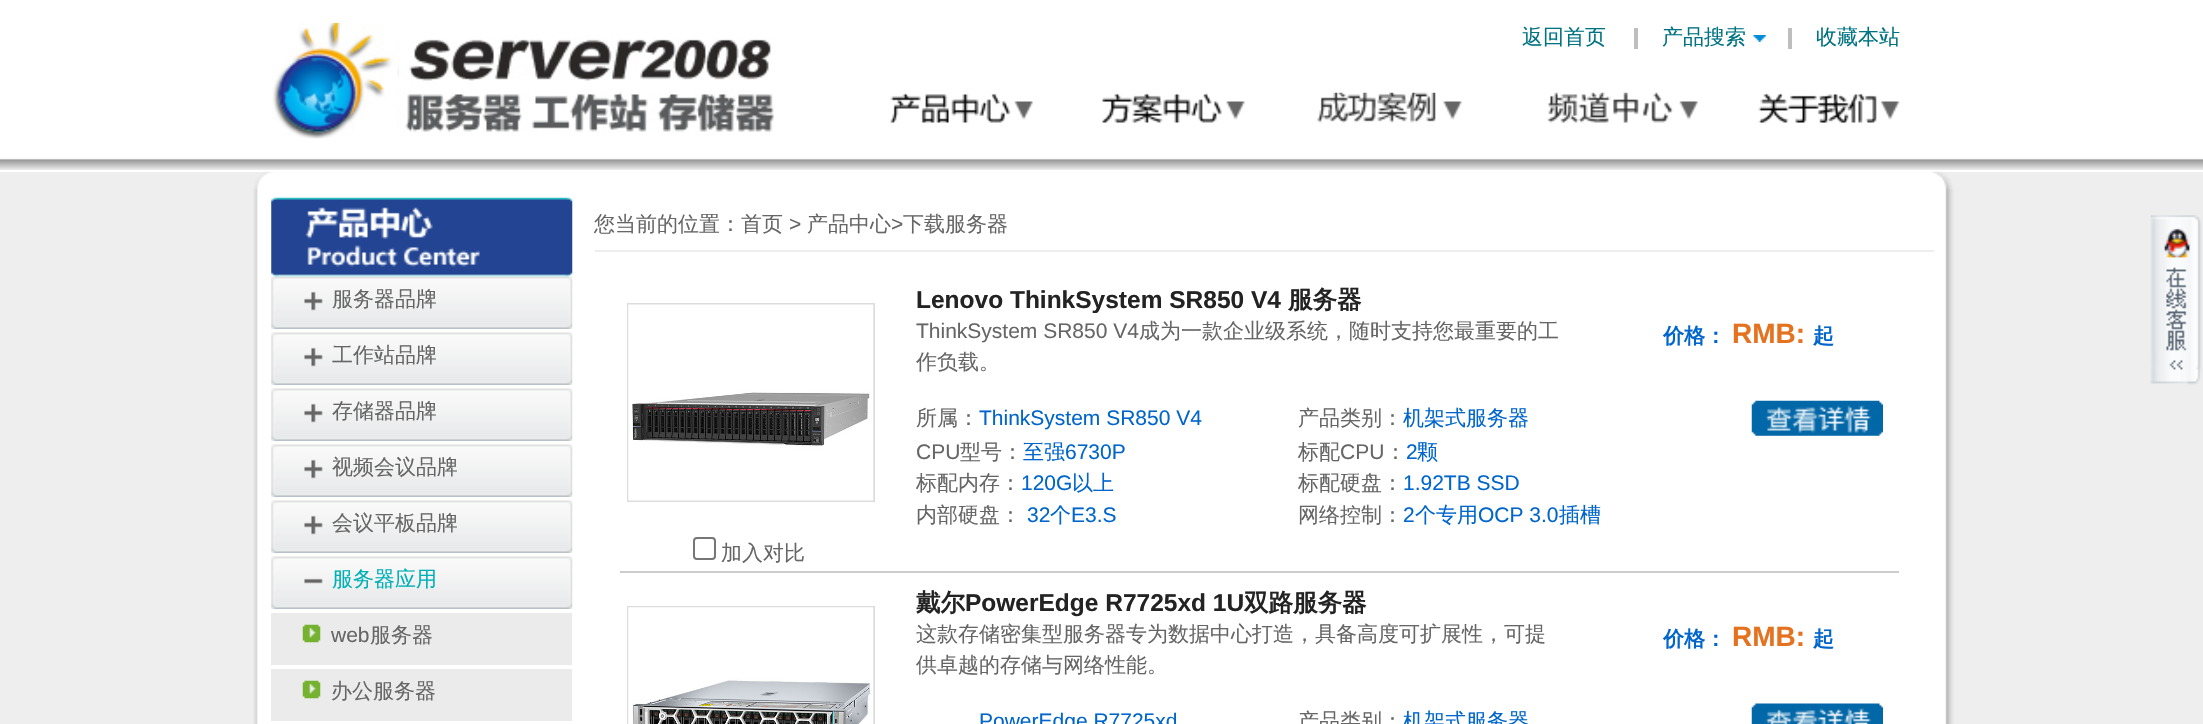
void draw(SkCanvas* canvas) {
	SkPaint paint;
	paint.setAntiAlias(true);
	canvas->clear(0xffeeeeee);
	paint.setColor(0xffffffff);
	canvas->drawRect(SkRect::MakeXYWH(0, 0, 2203, 172), paint);
	canvas->drawImageRect(SkImages::DeferredFromEncodedData(SkData::MakeFromFileName("img1.png")), SkRect::MakeXYWH(0, 158, 2203, 12), SkSamplingOptions());
	canvas->drawImageRect(SkImages::DeferredFromEncodedData(SkData::MakeFromFileName("img2.png")), SkRect::MakeXYWH(272, 22, 502, 117), SkSamplingOptions());
	SkFont f1(fontMgr->matchFamilyStyle("WenQuanYi Zen Hei", SkFontStyle(500, SkFontStyle::kNormal_Width, SkFontStyle::kUpright_Slant)), 21);
	f1.setSubpixel(true);
	paint.setColor(0xff007382);
	canvas->drawString("返回首页", 1522, 44, f1, paint);
	paint.setColor(0xffbebebe);
	canvas->drawRect(SkRect::MakeXYWH(1634, 28, 4, 21), paint);
	paint.setColor(0xff007382);
	canvas->drawString("产品搜索", 1662, 44, f1, paint);
	canvas->drawImageRect(SkImages::DeferredFromEncodedData(SkData::MakeFromFileName("img3.png")), SkRect::MakeXYWH(1753, 35, 13, 7), SkSamplingOptions());
	paint.setColor(0xffbebebe);
	canvas->drawRect(SkRect::MakeXYWH(1788, 28, 4, 21), paint);
	paint.setColor(0xff007382);
	canvas->drawString("收藏本站", 1816, 44, f1, paint);
	canvas->drawImageRect(SkImages::DeferredFromEncodedData(SkData::MakeFromFileName("img4.png")), SkRect::MakeXYWH(890, 93, 143, 30), SkSamplingOptions());
	canvas->drawImageRect(SkImages::DeferredFromEncodedData(SkData::MakeFromFileName("img5.png")), SkRect::MakeXYWH(1102, 93, 143, 30), SkSamplingOptions());
	canvas->drawImageRect(SkImages::DeferredFromEncodedData(SkData::MakeFromFileName("img6.png")), SkRect::MakeXYWH(1317, 92, 145, 31), SkSamplingOptions());
	canvas->drawImageRect(SkImages::DeferredFromEncodedData(SkData::MakeFromFileName("img7.png")), SkRect::MakeXYWH(1547, 92, 151, 31), SkSamplingOptions());
	canvas->drawImageRect(SkImages::DeferredFromEncodedData(SkData::MakeFromFileName("img8.png")), SkRect::MakeXYWH(1758, 93, 142, 30), SkSamplingOptions());
	canvas->drawImageRect(SkImages::DeferredFromEncodedData(SkData::MakeFromFileName("img9.png")), SkRect::MakeXYWH(254, 171, 1699, 18), SkSamplingOptions());
	canvas->drawImageRect(SkImages::DeferredFromEncodedData(SkData::MakeFromFileName("img10.png")), SkRect::MakeXYWH(253, 189, 1701, 535), SkSamplingOptions());
	canvas->drawImageRect(SkImages::DeferredFromEncodedData(SkData::MakeFromFileName("img12.png")), SkRect::MakeXYWH(271, 276, 302, 53), SkSamplingOptions());
	canvas->drawImageRect(SkImages::DeferredFromEncodedData(SkData::MakeFromFileName("img11.png")), SkRect::MakeXYWH(271, 197, 302, 80), SkSamplingOptions());
	paint.setColor(0xff666666);
	canvas->drawString("服务器品牌", 332, 306, f1, paint);
	canvas->drawImageRect(SkImages::DeferredFromEncodedData(SkData::MakeFromFileName("img12.png")), SkRect::MakeXYWH(271, 332, 302, 53), SkSamplingOptions());
	canvas->drawString("工作站品牌", 332, 362, f1, paint);
	canvas->drawImageRect(SkImages::DeferredFromEncodedData(SkData::MakeFromFileName("img12.png")), SkRect::MakeXYWH(271, 388, 302, 53), SkSamplingOptions());
	canvas->drawString("存储器品牌", 332, 418, f1, paint);
	canvas->drawImageRect(SkImages::DeferredFromEncodedData(SkData::MakeFromFileName("img12.png")), SkRect::MakeXYWH(271, 444, 302, 53), SkSamplingOptions());
	canvas->drawString("视频会议品牌", 332, 474, f1, paint);
	canvas->drawImageRect(SkImages::DeferredFromEncodedData(SkData::MakeFromFileName("img12.png")), SkRect::MakeXYWH(271, 500, 302, 53), SkSamplingOptions());
	canvas->drawString("会议平板品牌", 332, 530, f1, paint);
	canvas->drawImageRect(SkImages::DeferredFromEncodedData(SkData::MakeFromFileName("img13.png")), SkRect::MakeXYWH(271, 556, 302, 53), SkSamplingOptions());
	paint.setColor(0xff00b0b7);
	canvas->drawString("服务器应用", 332, 586, f1, paint);
	paint.setColor(0xffebebeb);
	canvas->drawRect(SkRect::MakeXYWH(271, 613, 301, 52), paint);
	canvas->drawImageRect(SkImages::DeferredFromEncodedData(SkData::MakeFromFileName("img14.png")), SkRect::MakeXYWH(302, 624, 19, 19), SkSamplingOptions());
	SkFont f2(fontMgr->matchFamilyStyle("Liberation Sans", SkFontStyle::Normal()), 21);
	f2.setSubpixel(true);
	paint.setColor(0xff666666);
	canvas->drawString("web", 331, 642, f2, paint);
	canvas->drawString("服务器", 370, 642, f1, paint);
	paint.setColor(0xffebebeb);
	canvas->drawRect(SkRect::MakeXYWH(271, 669, 301, 52), paint);
	canvas->drawImageRect(SkImages::DeferredFromEncodedData(SkData::MakeFromFileName("img14.png")), SkRect::MakeXYWH(302, 680, 19, 19), SkSamplingOptions());
	paint.setColor(0xff666666);
	canvas->drawString("办公服务器", 331, 698, f1, paint);
	paint.setColor(0xffeeeeee);
	canvas->drawRect(SkRect::MakeXYWH(595, 250, 1339, 2), paint);
	paint.setColor(0xff666666);
	canvas->drawString("您当前的位置：首页", 594, 231, f1, paint);
	canvas->drawString(">", 789, 231, f2, paint);
	canvas->drawString("产品中心", 807, 231, f1, paint);
	canvas->drawString(">", 891, 231, f2, paint);
	canvas->drawString("下载服务器", 903, 231, f1, paint);
	SkFont f3(fontMgr->matchFamilyStyle("Liberation Sans", SkFontStyle::Bold()), 24.5);
	f3.setSubpixel(true);
	paint.setColor(0xff232323);
	canvas->drawString("Lenovo ThinkSystem SR850 V4", 916, 308, f3, paint);
	SkFont f4(fontMgr->matchFamilyStyle("WenQuanYi Zen Hei", SkFontStyle::Bold()), 24.5);
	f4.setSubpixel(true);
	canvas->drawString("服务器", 1288, 308, f4, paint);
	SkFont f5(fontMgr->matchFamilyStyle("WenQuanYi Zen Hei", SkFontStyle::Bold()), 21);
	f5.setSubpixel(true);
	paint.setColor(0xff0066cc);
	canvas->drawString("价格：", 1663, 343, f5, paint);
	SkFont f6(fontMgr->matchFamilyStyle("Liberation Sans", SkFontStyle::Bold()), 28);
	f6.setSubpixel(true);
	paint.setColor(0xffe5721f);
	canvas->drawString("RMB:", 1732, 343, f6, paint);
	paint.setColor(0xff0066cc);
	canvas->drawString("起", 1813, 343, f5, paint);
	paint.setColor(0xff666666);
	canvas->drawString("ThinkSystem SR850 V4", 916, 338, f2, paint);
	canvas->drawString("成为一款企业级系统，随时支持您最重要的工", 1139, 338, f1, paint);
	canvas->drawString("作负载。", 916, 369, f1, paint);
	paint.setStroke(true);
	paint.setStrokeWidth(2);
	paint.setColor(0xffdddddd);
	canvas->drawRect(SkRect::MakeXYWH(628, 304, 246, 197), paint);
	canvas->drawImageRect(SkImages::DeferredFromEncodedData(SkData::MakeFromFileName("img15.png")), SkRect::MakeXYWH(628, 304, 246, 197), SkSamplingOptions());
	paint.setColor(0xff767676);
	canvas->drawRoundRect(SkRect::MakeXYWH(694, 538, 21, 21), 3, 3, paint);
	paint.setStroke(false);
	paint.setColor(0xff666666);
	canvas->drawString("加入对比", 721, 560, f1, paint);
	canvas->drawString("所属：", 916, 425, f1, paint);
	paint.setColor(0xff0066cc);
	canvas->drawString("ThinkSystem SR850 V4", 979, 425, f2, paint);
	paint.setColor(0xff666666);
	canvas->drawString("产品类别：", 1298, 425, f1, paint);
	paint.setColor(0xff0066cc);
	canvas->drawString("机架式服务器", 1403, 425, f1, paint);
	canvas->drawImageRect(SkImages::DeferredFromEncodedData(SkData::MakeFromFileName("img16.png")), SkRect::MakeXYWH(1751, 400, 132, 36), SkSamplingOptions());
	paint.setColor(0xff666666);
	canvas->drawString("CPU", 916, 459, f2, paint);
	canvas->drawString("型号：", 960, 459, f1, paint);
	paint.setColor(0xff0066cc);
	canvas->drawString("至强", 1023, 459, f1, paint);
	canvas->drawString("6730P", 1065, 459, f2, paint);
	paint.setColor(0xff666666);
	canvas->drawString("标配", 1298, 459, f1, paint);
	canvas->drawString("CPU", 1340, 459, f2, paint);
	canvas->drawString("：", 1385, 459, f1, paint);
	paint.setColor(0xff0066cc);
	canvas->drawString("2", 1406, 459, f2, paint);
	canvas->drawString("颗", 1417, 459, f1, paint);
	paint.setColor(0xff666666);
	canvas->drawString("标配内存：", 916, 490, f1, paint);
	paint.setColor(0xff0066cc);
	canvas->drawString("120G", 1021, 490, f2, paint);
	canvas->drawString("以上", 1072, 490, f1, paint);
	paint.setColor(0xff666666);
	canvas->drawString("标配硬盘：", 1298, 490, f1, paint);
	paint.setColor(0xff0066cc);
	canvas->drawString("1.92TB SSD", 1403, 490, f2, paint);
	paint.setColor(0xff666666);
	canvas->drawString("内部硬盘：", 916, 522, f1, paint);
	paint.setColor(0xff0066cc);
	canvas->drawString("32", 1027, 522, f2, paint);
	canvas->drawString("个", 1050, 522, f1, paint);
	canvas->drawString("E3.S", 1071, 522, f2, paint);
	paint.setColor(0xff666666);
	canvas->drawString("网络控制：", 1298, 522, f1, paint);
	paint.setColor(0xff0066cc);
	canvas->drawString("2", 1403, 522, f2, paint);
	canvas->drawString("个专用", 1415, 522, f1, paint);
	canvas->drawString("OCP 3.0", 1478, 522, f2, paint);
	canvas->drawString("插槽", 1559, 522, f1, paint);
	paint.setColor(0xffcccccc);
	canvas->drawRect(SkRect::MakeXYWH(620, 571, 1279, 2), paint);
	paint.setStroke(true);
	paint.setColor(0xffdddddd);
	canvas->drawRect(SkRect::MakeXYWH(628, 607, 246, 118), paint);
	canvas->drawImageRect(SkImages::DeferredFromEncodedData(SkData::MakeFromFileName("img17.png")), SkRect::MakeXYWH(628, 607, 246, 117), SkSamplingOptions());
	paint.setStroke(false);
	paint.setColor(0xff232323);
	canvas->drawString("戴尔", 916, 611, f4, paint);
	canvas->drawString("PowerEdge R7725xd 1U", 965, 611, f3, paint);
	canvas->drawString("双路服务器", 1244, 611, f4, paint);
	paint.setColor(0xff0066cc);
	canvas->drawString("价格：", 1663, 646, f5, paint);
	paint.setColor(0xffe5721f);
	canvas->drawString("RMB:", 1732, 646, f6, paint);
	paint.setColor(0xff0066cc);
	canvas->drawString("起", 1813, 646, f5, paint);
	paint.setColor(0xff666666);
	canvas->drawString("这款存储密集型服务器专为数据中心打造，具备高度可扩展性，可提", 916, 641, f1, paint);
	canvas->drawString("供卓越的存储与网络性能。", 916, 672, f1, paint);
	paint.setColor(0xff0066cc);
	canvas->drawString("PowerEdge R7725xd", 979, 728, f2, paint);
	paint.setColor(0xff666666);
	canvas->drawString("产品类别：", 1298, 728, f1, paint);
	paint.setColor(0xff0066cc);
	canvas->drawString("机架式服务器", 1403, 728, f1, paint);
	canvas->drawImageRect(SkImages::DeferredFromEncodedData(SkData::MakeFromFileName("img18.png")), SkRect::MakeXYWH(1751, 703, 132, 21), SkSamplingOptions());
	canvas->drawImageRect(SkImages::DeferredFromEncodedData(SkData::MakeFromFileName("img19.png")), SkRect::MakeXYWH(2150, 215, 52, 170), SkSamplingOptions());
}
